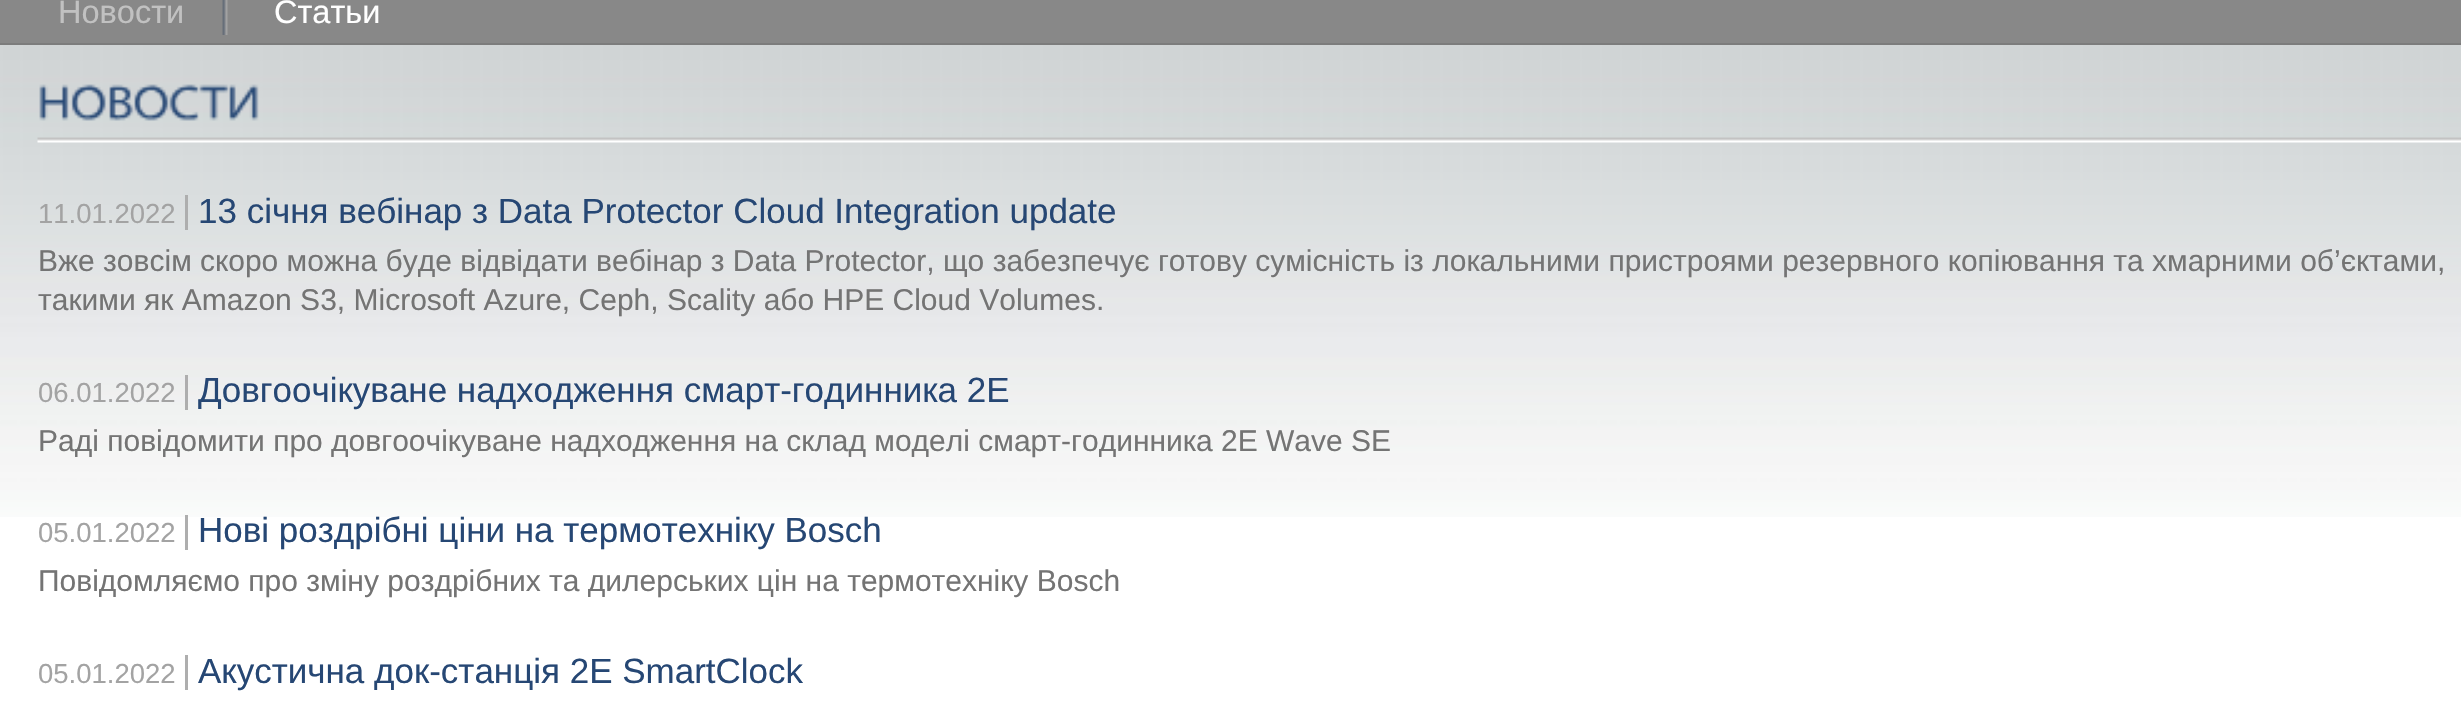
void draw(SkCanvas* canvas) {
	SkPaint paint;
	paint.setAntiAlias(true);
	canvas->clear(0xffffffff);
	paint.setColor(0xff888888);
	canvas->drawRect(SkRect::MakeXYWH(0, 0, 2461, 43), paint);
	paint.setColor(0xff7c7c7c);
	canvas->drawRect(SkRect::MakeXYWH(0, 43, 2461, 2), paint);
	canvas->drawImageRect(SkImages::DeferredFromEncodedData(SkData::MakeFromFileName("img1.png")), SkRect::MakeXYWH(222, 0, 6, 35), SkSamplingOptions());
	SkFont f1(fontMgr->matchFamilyStyle("Liberation Sans", SkFontStyle::Normal()), 32.5);
	f1.setSubpixel(true);
	paint.setColor(0xffc1c1c1);
	canvas->drawString("Новости", 58, 23, f1, paint);
	paint.setColor(0xffffffff);
	canvas->drawString("Статьи", 274, 23, f1, paint);
	canvas->drawImageRect(SkImages::DeferredFromEncodedData(SkData::MakeFromFileName("img2.png")), SkRect::MakeXYWH(0, 45, 2461, 472), SkSamplingOptions());
	canvas->drawImageRect(SkImages::DeferredFromEncodedData(SkData::MakeFromFileName("img3.png")), SkRect::MakeXYWH(37, 137, 2424, 6), SkSamplingOptions());
	canvas->drawImageRect(SkImages::DeferredFromEncodedData(SkData::MakeFromFileName("img4.png")), SkRect::MakeXYWH(39, 84, 220, 37), SkSamplingOptions());
	paint.setColor(0xffaeaeae);
	canvas->drawRect(SkRect::MakeXYWH(185, 195, 3, 35), paint);
	SkFont f2(fontMgr->matchFamilyStyle("Liberation Sans", SkFontStyle::Normal()), 27.5);
	f2.setSubpixel(true);
	paint.setColor(0xffa3a3a3);
	canvas->drawString("11.01.2022", 38, 223, f2, paint);
	SkFont f3(fontMgr->matchFamilyStyle("Liberation Sans", SkFontStyle::Normal()), 35);
	f3.setSubpixel(true);
	paint.setColor(0xff264774);
	canvas->drawString("13 січня вебінар з Data Protector Cloud Integration update", 198, 223, f3, paint);
	SkFont f4(fontMgr->matchFamilyStyle("Liberation Sans", SkFontStyle::Normal()), 30);
	f4.setSubpixel(true);
	paint.setColor(0xff747474);
	canvas->drawString("Вже зовсім скоро можна буде відвідати вебінар з Data Protector, що забезпечує готову сумісність із локальними пристроями резервного копіювання та хмарними об’єктами,", 38, 271, f4, paint);
	canvas->drawString("такими як Amazon S3, Microsoft Azure, Ceph, Scality або HPE Cloud Volumes.", 38, 310, f4, paint);
	paint.setColor(0xffaeaeae);
	canvas->drawRect(SkRect::MakeXYWH(185, 375, 3, 35), paint);
	paint.setColor(0xffa3a3a3);
	canvas->drawString("06.01.2022", 38, 402, f2, paint);
	paint.setColor(0xff264774);
	canvas->drawString("Довгоочікуване надходження смарт-годинника 2E", 198, 402, f3, paint);
	paint.setColor(0xff747474);
	canvas->drawString("Раді повідомити про довгоочікуване надходження на склад моделі смарт-годинника 2E Wave SE", 38, 451, f4, paint);
	paint.setColor(0xffaeaeae);
	canvas->drawRect(SkRect::MakeXYWH(185, 515, 3, 35), paint);
	paint.setColor(0xffa3a3a3);
	canvas->drawString("05.01.2022", 38, 542, f2, paint);
	paint.setColor(0xff264774);
	canvas->drawString("Нові роздрібні ціни на термотехніку Bosch", 198, 542, f3, paint);
	paint.setColor(0xff747474);
	canvas->drawString("Повідомляємо про зміну роздрібних та дилерських цін на термотехніку Bosch", 38, 591, f4, paint);
	paint.setColor(0xffaeaeae);
	canvas->drawRect(SkRect::MakeXYWH(185, 655, 3, 35), paint);
	paint.setColor(0xffa3a3a3);
	canvas->drawString("05.01.2022", 38, 683, f2, paint);
	paint.setColor(0xff264774);
	canvas->drawString("Акустична док-станція 2E SmartClock", 198, 683, f3, paint);
}
